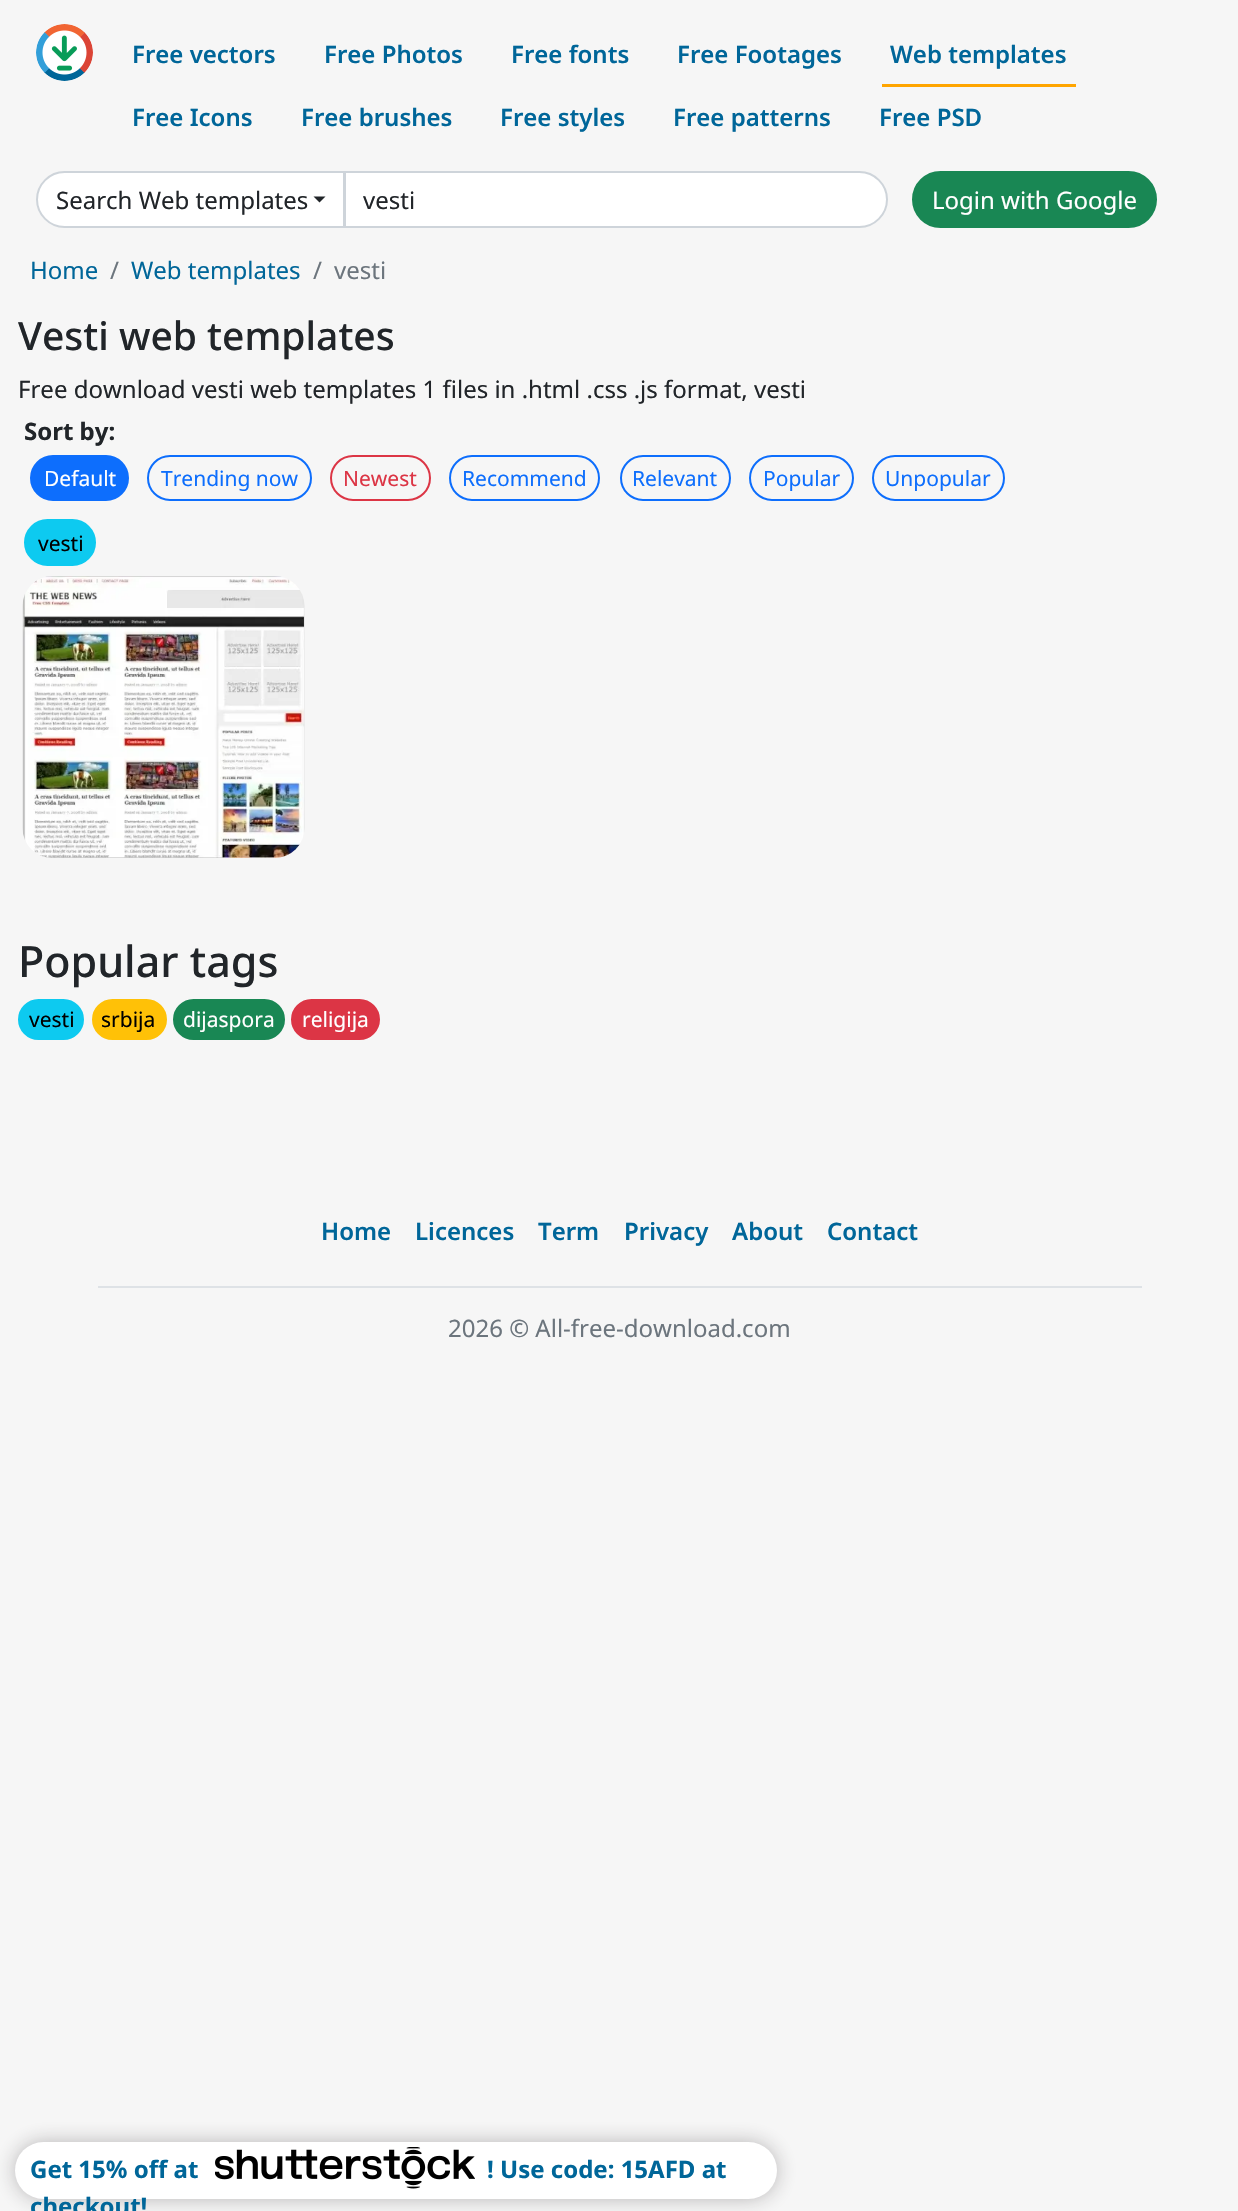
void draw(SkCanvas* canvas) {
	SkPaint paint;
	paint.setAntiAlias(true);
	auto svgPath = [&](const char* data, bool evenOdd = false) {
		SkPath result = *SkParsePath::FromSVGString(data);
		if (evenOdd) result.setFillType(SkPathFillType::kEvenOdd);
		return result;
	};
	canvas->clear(0xfff6f6f6);
	canvas->drawImageRect(SkImages::DeferredFromEncodedData(SkData::MakeFromFileName("img1.png")), SkRect::MakeXYWH(36, 24, 57, 57), SkSamplingOptions());
	SkFont f1(fontMgr->matchFamilyStyle("Noto Sans", SkFontStyle(600, SkFontStyle::kNormal_Width, SkFontStyle::kUpright_Slant)), 24);
	f1.setSubpixel(true);
	paint.setColor(0xff006699);
	canvas->drawString("Free vectors", 132, 63, f1, paint);
	canvas->drawString("Free Photos", 324, 63, f1, paint);
	canvas->drawString("Free fonts", 511, 63, f1, paint);
	canvas->drawString("Free Footages", 677, 63, f1, paint);
	paint.setColor(0xffffa500);
	canvas->drawRect(SkRect::MakeXYWH(882, 84, 194, 3), paint);
	paint.setColor(0xff006699);
	canvas->drawString("Web templates", 890, 63, f1, paint);
	canvas->drawString("Free Icons", 132, 126, f1, paint);
	canvas->drawString("Free brushes", 301, 126, f1, paint);
	canvas->drawString("Free styles", 500, 126, f1, paint);
	canvas->drawString("Free patterns", 673, 126, f1, paint);
	canvas->drawString("Free PSD", 879, 126, f1, paint);
	paint.setColor(0xffffffff);
	canvas->drawPath(svgPath("M64.5 172H344V227H64.5C49.5 227 37 214.5 37 199.5C37 184.5 49.5 172 64.5 172Z"), paint);
	paint.setStroke(true);
	paint.setStrokeWidth(2);
	paint.setColor(0xffced4da);
	canvas->drawPath(svgPath("M64.5 172H344V227H64.5C49.5 227 37 214.5 37 199.5C37 184.5 49.5 172 64.5 172Z"), paint);
	SkFont f2(fontMgr->matchFamilyStyle("Noto Sans", SkFontStyle::Normal()), 24);
	f2.setSubpixel(true);
	paint.setStroke(false);
	paint.setColor(0xff212529);
	canvas->drawString("Search Web templates", 56, 209, f2, paint);
	canvas->drawPath(svgPath("M313.5 196.5H325.5L319.5 202.5Z"), paint);
	paint.setColor(0xffffffff);
	canvas->drawPath(svgPath("M345 172H859.5C874.5 172 887 184.5 887 199.5C887 214.5 874.5 227 859.5 227H345Z"), paint);
	paint.setStroke(true);
	paint.setColor(0xffced4da);
	canvas->drawPath(svgPath("M345 172H859.5C874.5 172 887 184.5 887 199.5C887 214.5 874.5 227 859.5 227H345Z"), paint);
	paint.setStroke(false);
	paint.setColor(0xff212529);
	canvas->drawString("vesti", 363, 209, f2, paint);
	paint.setColor(0xff198754);
	canvas->drawRoundRect(SkRect::MakeXYWH(913, 172, 243, 55), 27.5, 27.5, paint);
	paint.setStroke(true);
	canvas->drawRoundRect(SkRect::MakeXYWH(913, 172, 243, 55), 27.5, 27.5, paint);
	paint.setStroke(false);
	paint.setColor(0xffffffff);
	canvas->drawString("Login with Google", 932, 209, f2, paint);
	paint.setColor(0xff006699);
	canvas->drawString("Home", 30, 279, f2, paint);
	paint.setColor(0xff6c757d);
	canvas->drawString("/", 110, 279, f2, paint);
	paint.setColor(0xff006699);
	canvas->drawString("Web templates", 131, 279, f2, paint);
	paint.setColor(0xff6c757d);
	canvas->drawString("/", 313, 279, f2, paint);
	canvas->drawString("vesti", 334, 279, f2, paint);
	SkFont f3(fontMgr->matchFamilyStyle("Noto Sans", SkFontStyle(500, SkFontStyle::kNormal_Width, SkFontStyle::kUpright_Slant)), 39);
	f3.setSubpixel(true);
	paint.setColor(0xff212529);
	canvas->drawString("Vesti web templates", 18, 350, f3, paint);
	canvas->drawString("Free download vesti web templates 1 files in .html .css .js format, vesti", 18, 398, f2, paint);
	SkFont f4(fontMgr->matchFamilyStyle("Noto Sans", SkFontStyle::Bold()), 24);
	f4.setSubpixel(true);
	canvas->drawString("Sort by:", 24, 440, f4, paint);
	paint.setColor(0xff0d6efd);
	canvas->drawRoundRect(SkRect::MakeXYWH(31, 456, 97, 44), 22, 22, paint);
	paint.setStroke(true);
	canvas->drawRoundRect(SkRect::MakeXYWH(31, 456, 97, 44), 22, 22, paint);
	SkFont f5(fontMgr->matchFamilyStyle("Noto Sans", SkFontStyle::Normal()), 21);
	f5.setSubpixel(true);
	paint.setStroke(false);
	paint.setColor(0xffffffff);
	canvas->drawString("Default", 44, 486, f5, paint);
	paint.setStroke(true);
	paint.setColor(0xff0d6efd);
	canvas->drawRoundRect(SkRect::MakeXYWH(148, 456, 163, 44), 22, 22, paint);
	paint.setStroke(false);
	canvas->drawString("Trending now", 161, 486, f5, paint);
	paint.setStroke(true);
	paint.setColor(0xffdc3545);
	canvas->drawRoundRect(SkRect::MakeXYWH(331, 456, 99, 44), 22, 22, paint);
	paint.setStroke(false);
	canvas->drawString("Newest", 343, 486, f5, paint);
	paint.setStroke(true);
	paint.setColor(0xff0d6efd);
	canvas->drawRoundRect(SkRect::MakeXYWH(450, 456, 149, 44), 22, 22, paint);
	paint.setStroke(false);
	canvas->drawString("Recommend", 462, 486, f5, paint);
	paint.setStroke(true);
	canvas->drawRoundRect(SkRect::MakeXYWH(621, 456, 109, 44), 22, 22, paint);
	paint.setStroke(false);
	canvas->drawString("Relevant", 632, 486, f5, paint);
	paint.setStroke(true);
	canvas->drawRoundRect(SkRect::MakeXYWH(750, 456, 103, 44), 22, 22, paint);
	paint.setStroke(false);
	canvas->drawString("Popular", 763, 486, f5, paint);
	paint.setStroke(true);
	canvas->drawRoundRect(SkRect::MakeXYWH(873, 456, 131, 44), 22, 22, paint);
	paint.setStroke(false);
	canvas->drawString("Unpopular", 885, 486, f5, paint);
	paint.setColor(0xff0dcaf0);
	canvas->drawRoundRect(SkRect::MakeXYWH(25, 520, 70, 45), 22.5, 22.5, paint);
	paint.setStroke(true);
	canvas->drawRoundRect(SkRect::MakeXYWH(25, 520, 70, 45), 22.5, 22.5, paint);
	paint.setStroke(false);
	paint.setColor(0xff000000);
	canvas->drawString("vesti", 38, 551, f5, paint);
	canvas->drawImageRect(SkImages::DeferredFromEncodedData(SkData::MakeFromFileName("img2.png")), SkRect::MakeXYWH(22, 576, 283, 282), SkSamplingOptions());
	SkFont f6(fontMgr->matchFamilyStyle("Noto Sans", SkFontStyle(500, SkFontStyle::kNormal_Width, SkFontStyle::kUpright_Slant)), 43);
	f6.setSubpixel(true);
	paint.setColor(0xff212529);
	canvas->drawString("Popular tags", 18, 977, f6, paint);
	paint.setColor(0xff0dcaf0);
	canvas->drawRoundRect(SkRect::MakeXYWH(19, 1000, 64, 39), 19.5, 19.5, paint);
	paint.setStroke(true);
	canvas->drawRoundRect(SkRect::MakeXYWH(19, 1000, 64, 39), 19.5, 19.5, paint);
	paint.setStroke(false);
	paint.setColor(0xff000000);
	canvas->drawString("vesti", 29, 1027, f5, paint);
	paint.setColor(0xffffc107);
	canvas->drawRoundRect(SkRect::MakeXYWH(93, 1000, 73, 39), 19.5, 19.5, paint);
	paint.setStroke(true);
	canvas->drawRoundRect(SkRect::MakeXYWH(93, 1000, 73, 39), 19.5, 19.5, paint);
	paint.setStroke(false);
	paint.setColor(0xff000000);
	canvas->drawString("srbija", 101, 1027, f5, paint);
	paint.setColor(0xff198754);
	canvas->drawRoundRect(SkRect::MakeXYWH(174, 1000, 110, 39), 19.5, 19.5, paint);
	paint.setStroke(true);
	canvas->drawRoundRect(SkRect::MakeXYWH(174, 1000, 110, 39), 19.5, 19.5, paint);
	paint.setStroke(false);
	paint.setColor(0xffffffff);
	canvas->drawString("dijaspora", 183, 1027, f5, paint);
	paint.setColor(0xffdc3545);
	canvas->drawRoundRect(SkRect::MakeXYWH(292, 1000, 87, 39), 19.5, 19.5, paint);
	paint.setStroke(true);
	canvas->drawRoundRect(SkRect::MakeXYWH(292, 1000, 87, 39), 19.5, 19.5, paint);
	paint.setStroke(false);
	paint.setColor(0xffffffff);
	canvas->drawString("religija", 302, 1027, f5, paint);
	paint.setColor(0xffdee2e6);
	canvas->drawRect(SkRect::MakeXYWH(98, 1286, 1044, 2), paint);
	paint.setColor(0xff006699);
	canvas->drawString("Home", 321, 1240, f1, paint);
	canvas->drawString("Licences", 415, 1240, f1, paint);
	canvas->drawString("Term", 538, 1240, f1, paint);
	canvas->drawString("Privacy", 624, 1240, f1, paint);
	canvas->drawString("About", 732, 1240, f1, paint);
	canvas->drawString("Contact", 827, 1240, f1, paint);
	paint.setColor(0xff6c757d);
	canvas->drawString("2026 © All-free-download.com", 448, 1337, f2, paint);
	paint.setColor(0x4d231f20);
	paint.setMaskFilter(SkMaskFilter::MakeBlur(kNormal_SkBlurStyle, 10));
	canvas->drawRoundRect(SkRect::MakeXYWH(15, 2142, 762, 57), 28.5, 28.5, paint);
	paint.setMaskFilter(nullptr);
	paint.setColor(0xffffffff);
	canvas->drawRoundRect(SkRect::MakeXYWH(15, 2142, 762, 57), 28.5, 28.5, paint);
	paint.setColor(0xff006699);
	canvas->drawString("Get 15% off at", 30, 2178, f4, paint);
	canvas->drawImageRect(SkImages::DeferredFromEncodedData(SkData::MakeFromFileName("img3.png")), SkRect::MakeXYWH(215, 2147, 260, 42), SkSamplingOptions());
	canvas->drawString("! Use code: 15AFD at", 487, 2178, f4, paint);
	canvas->drawString("checkout!", 30, 2215, f4, paint);
}
